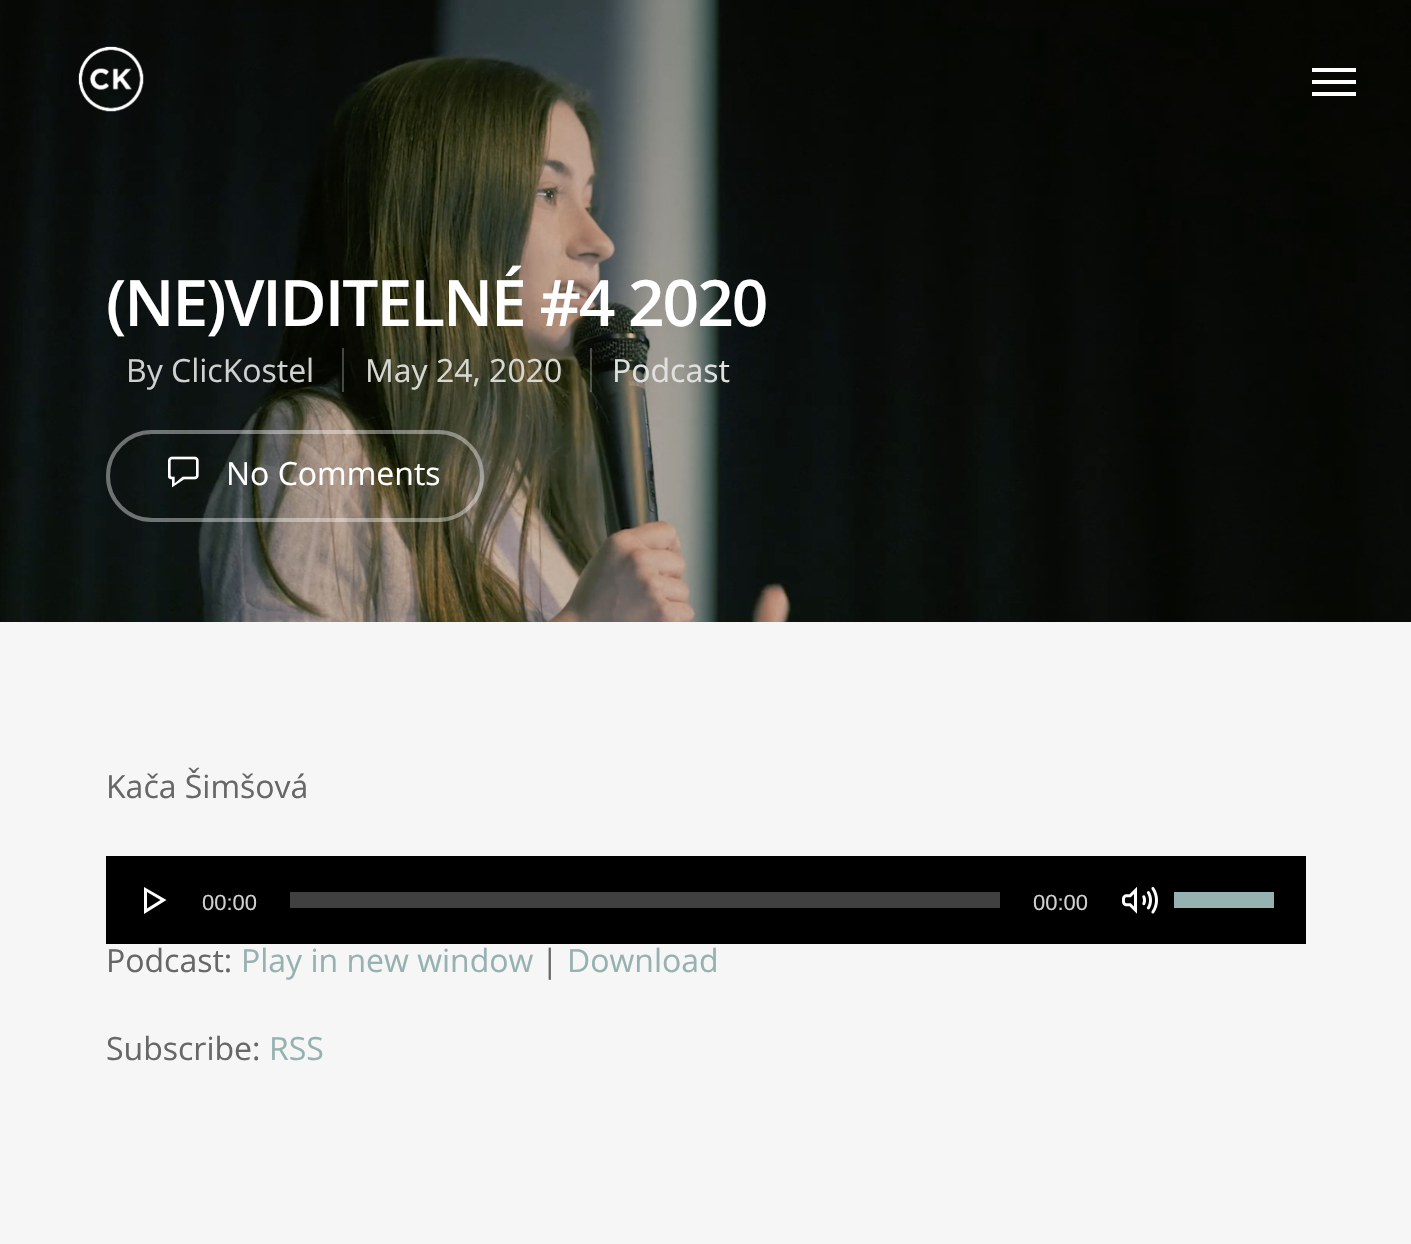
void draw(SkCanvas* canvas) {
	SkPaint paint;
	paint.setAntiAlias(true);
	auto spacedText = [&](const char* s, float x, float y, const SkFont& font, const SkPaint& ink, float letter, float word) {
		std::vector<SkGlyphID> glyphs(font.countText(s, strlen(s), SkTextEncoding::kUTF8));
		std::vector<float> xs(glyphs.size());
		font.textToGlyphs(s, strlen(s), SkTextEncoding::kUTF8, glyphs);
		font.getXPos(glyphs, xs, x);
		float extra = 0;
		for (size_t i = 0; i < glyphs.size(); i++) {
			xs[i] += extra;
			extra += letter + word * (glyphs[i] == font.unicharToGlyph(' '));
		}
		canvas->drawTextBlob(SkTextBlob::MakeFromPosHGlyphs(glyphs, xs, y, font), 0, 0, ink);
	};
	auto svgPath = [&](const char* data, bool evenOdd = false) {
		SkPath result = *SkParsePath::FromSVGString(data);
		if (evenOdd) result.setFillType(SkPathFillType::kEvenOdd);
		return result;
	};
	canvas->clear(0xffffffff);
	canvas->drawImageRect(SkImages::DeferredFromEncodedData(SkData::MakeFromFileName("img2.png")), SkRect::MakeXYWH(0, 0, 1411, 622), SkSamplingOptions());
	canvas->drawImageRect(SkImages::DeferredFromEncodedData(SkData::MakeFromFileName("img1.png")), SkRect::MakeXYWH(78, 46, 66, 66), SkSamplingOptions());
	paint.setColor(0xffffffff);
	canvas->drawRect(SkRect::MakeXYWH(1312, 68, 44, 4), paint);
	canvas->drawRect(SkRect::MakeXYWH(1312, 92, 44, 4), paint);
	canvas->drawRect(SkRect::MakeXYWH(1312, 80, 44, 4), paint);
	SkFont f1(fontMgr->matchFamilyStyle("Open Sans", SkFontStyle(600, SkFontStyle::kNormal_Width, SkFontStyle::kUpright_Slant)), 64);
	f1.setSubpixel(true);
	spacedText("(NE)VIDITELNÉ #4 2020", 106, 326, f1, paint, -2, 0);
	SkFont f2(fontMgr->matchFamilyStyle("Open Sans", SkFontStyle::Normal()), 32);
	f2.setSubpixel(true);
	paint.setColor(0xffcfd0d0);
	canvas->drawString("By", 126, 382, f2, paint);
	canvas->drawString("ClicKostel", 171, 382, f2, paint);
	paint.setColor(0xffd8d8d3);
	canvas->drawString("May 24, 2020", 365, 382, f2, paint);
	paint.setColor(0x40ffffff);
	canvas->drawRect(SkRect::MakeXYWH(342, 348, 2, 44), paint);
	paint.setColor(0xffe0e1df);
	canvas->drawString("Podcast", 612, 382, f2, paint);
	paint.setColor(0x40ffffff);
	canvas->drawRect(SkRect::MakeXYWH(590, 348, 2, 44), paint);
	paint.setStroke(true);
	paint.setStrokeWidth(4);
	paint.setColor(0x66ffffff);
	canvas->drawRoundRect(SkRect::MakeXYWH(108, 432, 374, 88), 44, 44, paint);
	canvas->drawImageRect(SkImages::DeferredFromEncodedData(SkData::MakeFromFileName("img3.png")), SkRect::MakeXYWH(168, 456, 31, 32), SkSamplingOptions());
	paint.setStroke(false);
	paint.setColor(0xffffffff);
	canvas->drawString("No Comments", 226, 485, f2, paint);
	paint.setColor(0xfff6f6f6);
	canvas->drawRect(SkRect::MakeXYWH(0, 622, 1411, 622), paint);
	paint.setColor(0xff676767);
	canvas->drawString("Kača Šimšová", 106, 798, f2, paint);
	paint.setColor(0xff000000);
	canvas->drawRect(SkRect::MakeXYWH(106, 856, 1200, 88), paint);
	paint.setColor(0xffffffff);
	canvas->drawPath(svgPath("M144 914V887L166.5 900ZM160.5 900L147 892V908.5Z"), paint);
	SkFont f3(fontMgr->matchFamilyStyle("Liberation Sans", SkFontStyle::Normal()), 22);
	f3.setSubpixel(true);
	paint.setColor(0xffcfd0d0);
	canvas->drawString("00:00", 202, 910, f3, paint);
	paint.setColor(0xff404040);
	canvas->drawRect(SkRect::MakeXYWH(290, 892, 710, 16), paint);
	paint.setColor(0xffcfd0d0);
	canvas->drawString("00:00", 1033, 910, f3, paint);
	canvas->drawImageRect(SkImages::DeferredFromEncodedData(SkData::MakeFromFileName("img4.png")), SkRect::MakeXYWH(1122, 886, 36, 28), SkSamplingOptions());
	paint.setColor(0xff96b2b0);
	canvas->drawRect(SkRect::MakeXYWH(1174, 892, 100, 16), paint);
	paint.setColor(0xff676767);
	canvas->drawString("Podcast:", 106, 972, f2, paint);
	paint.setColor(0xff96b2b0);
	canvas->drawString("Play in new window", 241, 972, f2, paint);
	paint.setColor(0xff676767);
	canvas->drawString("|", 541, 972, f2, paint);
	paint.setColor(0xff96b2b0);
	canvas->drawString("Download", 567, 972, f2, paint);
	paint.setColor(0xff676767);
	canvas->drawString("Subscribe:", 106, 1060, f2, paint);
	paint.setColor(0xff96b2b0);
	canvas->drawString("RSS", 269, 1060, f2, paint);
}
